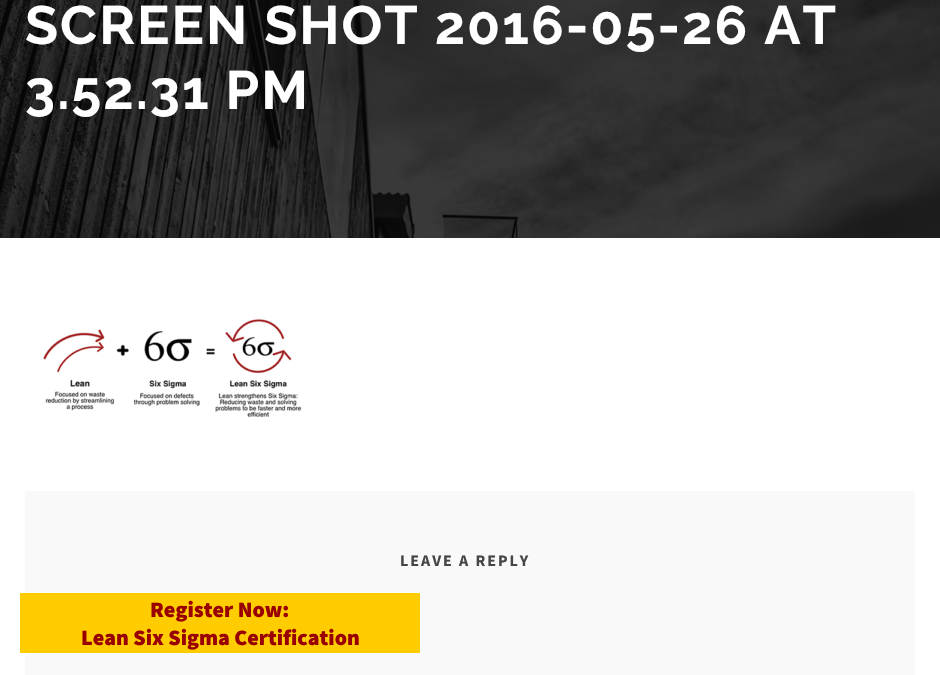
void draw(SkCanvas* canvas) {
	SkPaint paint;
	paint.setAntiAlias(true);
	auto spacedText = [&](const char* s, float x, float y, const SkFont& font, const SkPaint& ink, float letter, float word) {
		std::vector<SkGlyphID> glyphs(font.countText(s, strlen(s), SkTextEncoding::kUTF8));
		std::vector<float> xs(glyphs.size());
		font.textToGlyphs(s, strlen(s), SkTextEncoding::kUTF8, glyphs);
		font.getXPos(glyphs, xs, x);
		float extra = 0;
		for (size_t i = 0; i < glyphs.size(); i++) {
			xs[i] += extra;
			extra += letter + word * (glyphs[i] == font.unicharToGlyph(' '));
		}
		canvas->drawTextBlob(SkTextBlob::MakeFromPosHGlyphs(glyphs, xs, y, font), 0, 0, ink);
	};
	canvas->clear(0xffffffff);
	canvas->drawImageRect(SkImages::DeferredFromEncodedData(SkData::MakeFromFileName("img1.png")), SkRect::MakeXYWH(0, 0, 940, 238), SkSamplingOptions());
	SkFont f1(fontMgr->matchFamilyStyle("Raleway", SkFontStyle::Bold()), 54);
	f1.setSubpixel(true);
	paint.setColor(0xffffffff);
	spacedText("SCREEN SHOT 2016-05-26 AT", 25, 44, f1, paint, 2, 0);
	spacedText("3.52.31 PM", 25, 109, f1, paint, 2, 0);
	canvas->drawImageRect(SkImages::DeferredFromEncodedData(SkData::MakeFromFileName("img2.png")), SkRect::MakeXYWH(43, 318, 259, 100), SkSamplingOptions());
	paint.setColor(0xfff9f9f9);
	canvas->drawRect(SkRect::MakeXYWH(25, 491, 890, 184), paint);
	SkFont f2(fontMgr->matchFamilyStyle("Source Sans Pro", SkFontStyle::Bold()), 16);
	f2.setSubpixel(true);
	paint.setColor(0xff464646);
	spacedText("LEAVE A REPLY", 400, 566, f2, paint, 2, 0);
	paint.setColor(0xffffcc00);
	canvas->drawRoundRect(SkRect::MakeXYWH(20, 593, 400, 60), 1, 1, paint);
	SkFont f3(fontMgr->matchFamilyStyle("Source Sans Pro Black", SkFontStyle(900, SkFontStyle::kNormal_Width, SkFontStyle::kUpright_Slant)), 22);
	f3.setSubpixel(true);
	paint.setColor(0xff990000);
	canvas->drawString("Register Now:", 150, 617, f3, paint);
	canvas->drawString("Lean Six Sigma Certification", 81, 645, f3, paint);
}
